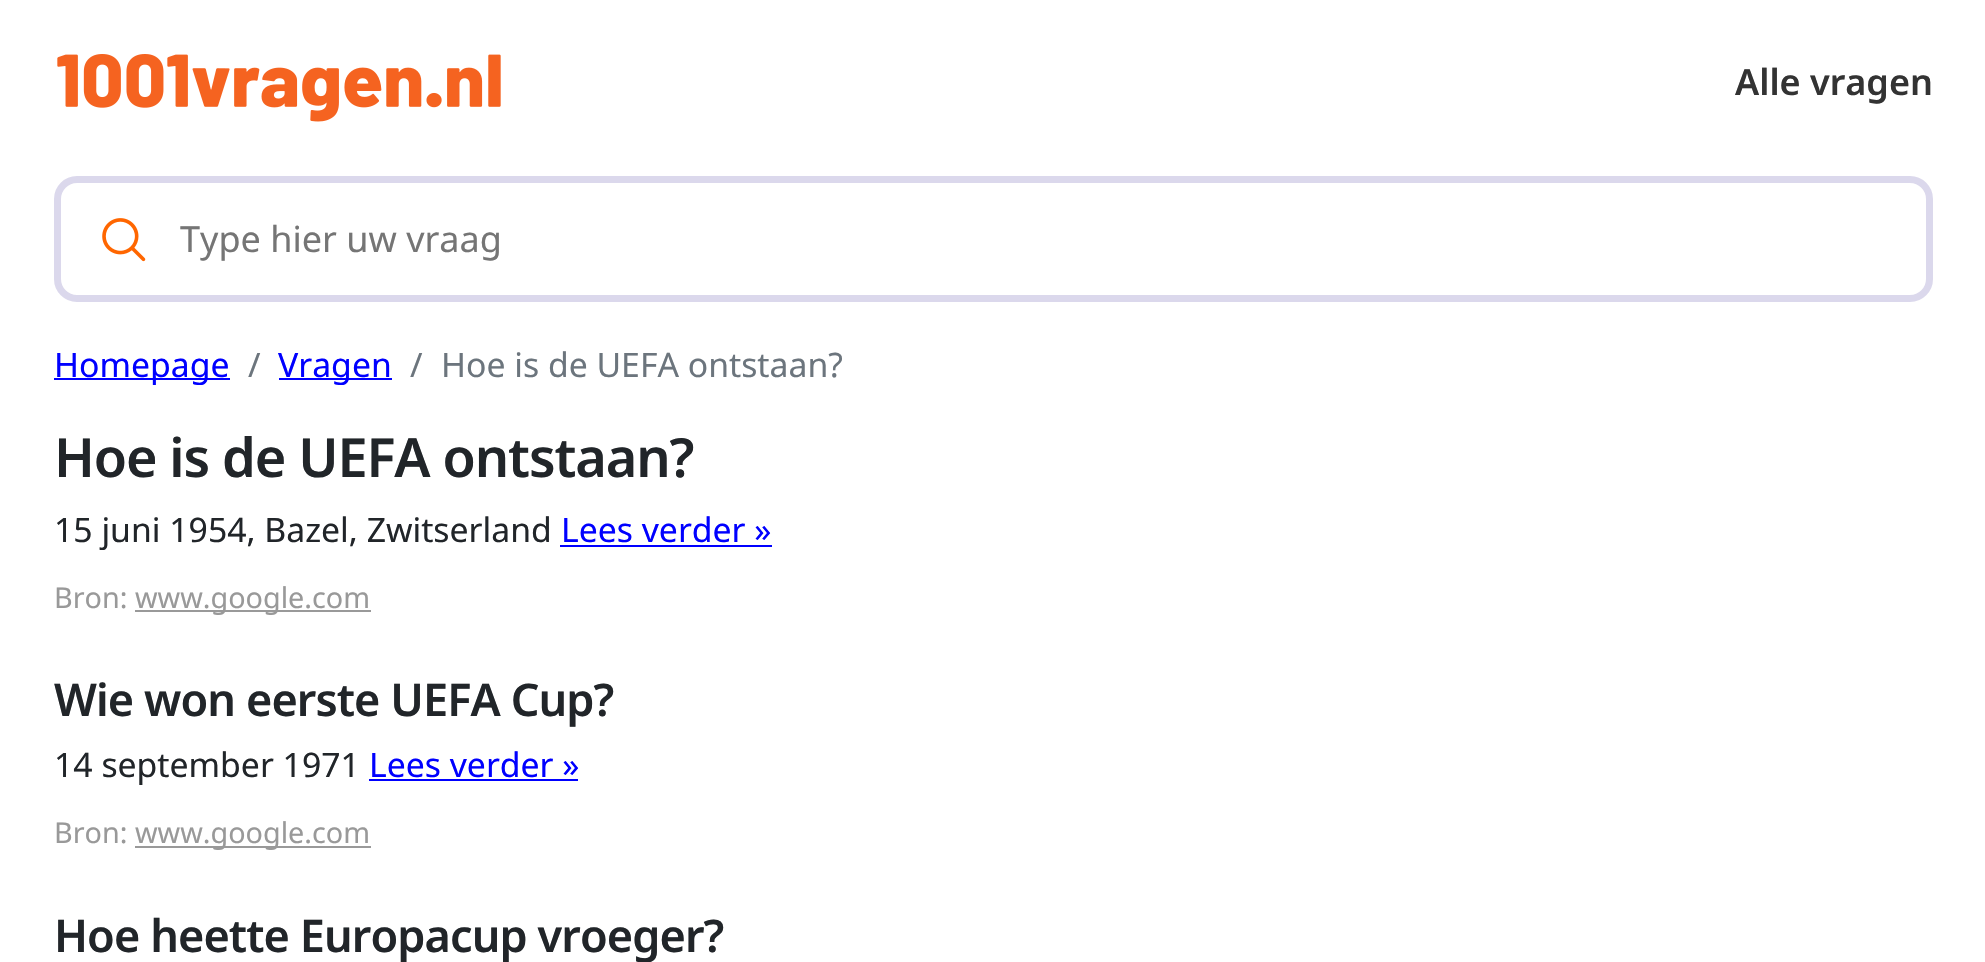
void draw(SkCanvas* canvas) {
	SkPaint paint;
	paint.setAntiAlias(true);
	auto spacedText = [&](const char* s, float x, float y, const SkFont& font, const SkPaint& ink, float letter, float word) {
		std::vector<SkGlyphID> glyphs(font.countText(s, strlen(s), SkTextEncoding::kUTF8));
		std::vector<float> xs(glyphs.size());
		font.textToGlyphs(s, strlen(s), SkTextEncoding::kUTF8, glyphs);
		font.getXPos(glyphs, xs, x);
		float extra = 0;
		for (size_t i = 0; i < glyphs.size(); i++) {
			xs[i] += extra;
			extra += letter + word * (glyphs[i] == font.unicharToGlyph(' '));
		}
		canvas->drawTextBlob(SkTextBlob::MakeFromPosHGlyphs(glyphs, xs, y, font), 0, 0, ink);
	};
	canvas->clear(0xffffffff);
	canvas->drawImageRect(SkImages::DeferredFromEncodedData(SkData::MakeFromFileName("img1.png")), SkRect::MakeXYWH(57, 54, 444, 68), SkSamplingOptions());
	SkFont f1(fontMgr->matchFamilyStyle("Noto Sans", SkFontStyle(600, SkFontStyle::kNormal_Width, SkFontStyle::kUpright_Slant)), 36);
	f1.setSubpixel(true);
	paint.setColor(0xff333333);
	canvas->drawString("Alle vragen", 1735, 95, f1, paint);
	paint.setStroke(true);
	paint.setStrokeWidth(7);
	paint.setColor(0xffdbd8ec);
	canvas->drawRoundRect(SkRect::MakeXYWH(57.5, 179.5, 1872, 119), 19.5, 19.5, paint);
	canvas->drawImageRect(SkImages::DeferredFromEncodedData(SkData::MakeFromFileName("img2.png")), SkRect::MakeXYWH(102, 218, 44, 44), SkSamplingOptions());
	SkFont f2(fontMgr->matchFamilyStyle("Noto Sans", SkFontStyle::Normal()), 36);
	f2.setSubpixel(true);
	paint.setStroke(false);
	paint.setColor(0xff757575);
	canvas->drawString("Type hier uw vraag", 180, 252, f2, paint);
	paint.setColor(0xff0000ff);
	canvas->drawRect(SkRect::MakeXYWH(54, 378, 176, 2), paint);
	SkFont f3(fontMgr->matchFamilyStyle("Noto Sans", SkFontStyle::Normal()), 33.75);
	f3.setSubpixel(true);
	canvas->drawString("Homepage", 54, 377, f3, paint);
	paint.setColor(0xff6c757d);
	canvas->drawString("/", 248, 377, f3, paint);
	paint.setColor(0xff0000ff);
	canvas->drawRect(SkRect::MakeXYWH(279, 378, 113, 2), paint);
	canvas->drawString("Vragen", 278, 377, f3, paint);
	paint.setColor(0xff6c757d);
	canvas->drawString("/", 410, 377, f3, paint);
	canvas->drawString("Hoe is de UEFA ontstaan?", 441, 377, f3, paint);
	SkFont f4(fontMgr->matchFamilyStyle("Noto Sans", SkFontStyle(600, SkFontStyle::kNormal_Width, SkFontStyle::kUpright_Slant)), 54);
	f4.setSubpixel(true);
	paint.setColor(0xff212529);
	spacedText("Hoe is de UEFA ontstaan?", 54, 477, f4, paint, -1.1, 0);
	canvas->drawString("15 juni 1954, Bazel, Zwitserland", 54, 542, f3, paint);
	paint.setColor(0xff0000ff);
	canvas->drawString("Lees verder »", 561, 542, f3, paint);
	canvas->drawRect(SkRect::MakeXYWH(560, 545, 212, 2), paint);
	SkFont f5(fontMgr->matchFamilyStyle("Noto Sans", SkFontStyle::Normal()), 28.75);
	f5.setSubpixel(true);
	paint.setColor(0xff999999);
	canvas->drawString("Bron:", 54, 608, f5, paint);
	canvas->drawRect(SkRect::MakeXYWH(135, 610, 236, 2), paint);
	canvas->drawString("www.google.com", 135, 608, f5, paint);
	SkFont f6(fontMgr->matchFamilyStyle("Noto Sans", SkFontStyle(600, SkFontStyle::kNormal_Width, SkFontStyle::kUpright_Slant)), 45);
	f6.setSubpixel(true);
	paint.setColor(0xff212529);
	spacedText("Wie won eerste UEFA Cup?", 54, 716, f6, paint, -0.9, 0);
	canvas->drawString("14 september 1971", 54, 777, f3, paint);
	paint.setColor(0xff0000ff);
	canvas->drawString("Lees verder »", 369, 777, f3, paint);
	canvas->drawRect(SkRect::MakeXYWH(369, 779, 209, 2), paint);
	paint.setColor(0xff999999);
	canvas->drawString("Bron:", 54, 843, f5, paint);
	canvas->drawRect(SkRect::MakeXYWH(135, 846, 236, 2), paint);
	canvas->drawString("www.google.com", 135, 843, f5, paint);
	paint.setColor(0xff212529);
	spacedText("Hoe heette Europacup vroeger?", 54, 952, f6, paint, -0.9, 0);
}
